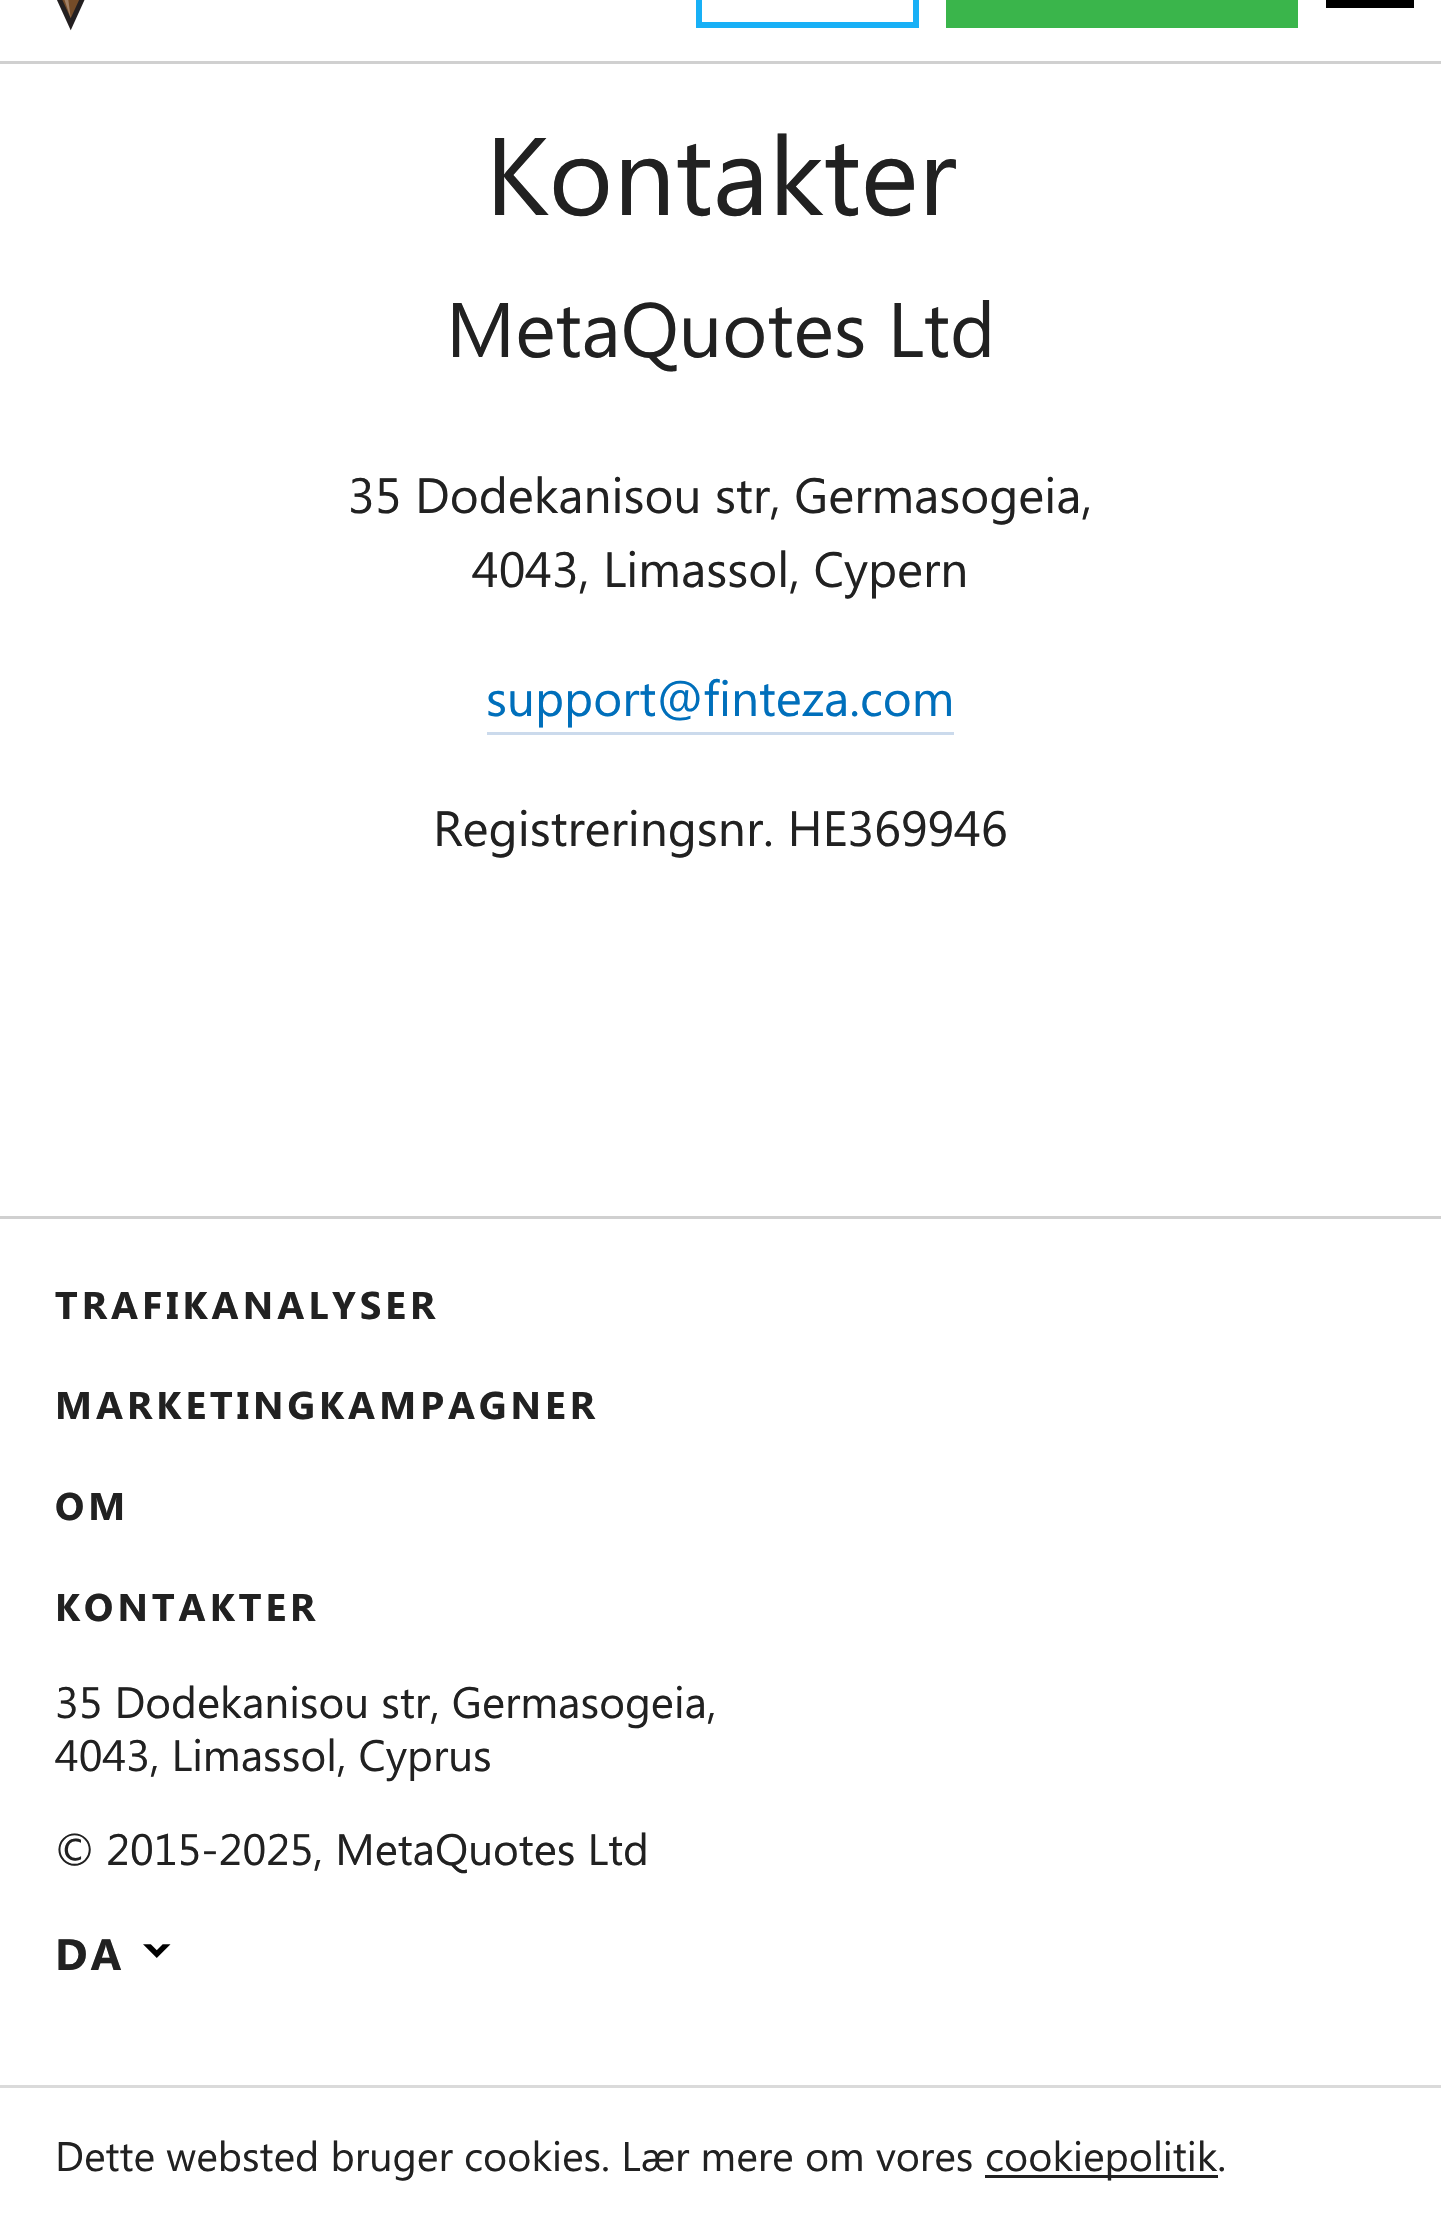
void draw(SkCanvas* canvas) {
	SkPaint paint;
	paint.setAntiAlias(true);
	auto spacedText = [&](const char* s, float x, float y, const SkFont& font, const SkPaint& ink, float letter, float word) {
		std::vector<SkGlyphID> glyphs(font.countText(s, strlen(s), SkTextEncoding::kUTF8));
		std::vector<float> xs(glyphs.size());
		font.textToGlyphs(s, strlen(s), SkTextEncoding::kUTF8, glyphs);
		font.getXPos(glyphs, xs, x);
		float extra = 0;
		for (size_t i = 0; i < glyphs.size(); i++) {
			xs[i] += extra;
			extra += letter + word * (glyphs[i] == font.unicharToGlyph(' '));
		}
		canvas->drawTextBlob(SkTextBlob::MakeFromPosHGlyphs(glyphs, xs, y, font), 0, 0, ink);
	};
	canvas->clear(0xffffffff);
	paint.setColor(0xffd0d0d0);
	canvas->drawRect(SkRect::MakeXYWH(0, 61, 1441, 3), paint);
	canvas->drawImageRect(SkImages::DeferredFromEncodedData(SkData::MakeFromFileName("img1.png")), SkRect::MakeXYWH(57, 0, 28, 31), SkSamplingOptions());
	paint.setStroke(true);
	paint.setStrokeWidth(6);
	paint.setColor(0xff18b0f6);
	canvas->drawRect(SkRect::MakeXYWH(699, -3, 217, 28), paint);
	paint.setStroke(false);
	paint.setColor(0xff3ab54b);
	canvas->drawRect(SkRect::MakeXYWH(946, 0, 352, 28), paint);
	paint.setColor(0xff000000);
	canvas->drawRect(SkRect::MakeXYWH(1326, 0, 88, 8), paint);
	SkFont f1(fontMgr->matchFamilyStyle("Segoe UI", SkFontStyle::Normal()), 110);
	f1.setSubpixel(true);
	paint.setColor(0xff212121);
	canvas->drawString("Kontakter", 485, 215, f1, paint);
	SkFont f2(fontMgr->matchFamilyStyle("Segoe UI", SkFontStyle::Normal()), 77);
	f2.setSubpixel(true);
	canvas->drawString("MetaQuotes Ltd", 446, 357, f2, paint);
	SkFont f3(fontMgr->matchFamilyStyle("Segoe UI", SkFontStyle::Normal()), 49.5);
	f3.setSubpixel(true);
	canvas->drawString("35 Dodekanisou str, Germasogeia,", 348, 513, f3, paint);
	canvas->drawString("4043, Limassol, Cypern", 472, 587, f3, paint);
	paint.setColor(0xff006fbb);
	canvas->drawString("support@finteza.com", 486, 716, f3, paint);
	paint.setColor(0xffcbdaec);
	canvas->drawRect(SkRect::MakeXYWH(487, 732, 467, 3), paint);
	paint.setColor(0xff212121);
	canvas->drawString("Registreringsnr. HE369946", 433, 846, f3, paint);
	paint.setColor(0xffd0d0d0);
	canvas->drawRect(SkRect::MakeXYWH(0, 1216, 1441, 3), paint);
	SkFont f4(fontMgr->matchFamilyStyle("Segoe UI", SkFontStyle::Bold()), 38.5);
	f4.setSubpixel(true);
	paint.setColor(0xff212121);
	spacedText("TRAFIKANALYSER", 55, 1319, f4, paint, 4.1, 0);
	spacedText("MARKETINGKAMPAGNER", 55, 1419, f4, paint, 4.1, 0);
	spacedText("OM", 55, 1520, f4, paint, 4.1, 0);
	spacedText("KONTAKTER", 55, 1621, f4, paint, 4.1, 0);
	SkFont f5(fontMgr->matchFamilyStyle("Segoe UI", SkFontStyle::Normal()), 44);
	f5.setSubpixel(true);
	canvas->drawString("35 Dodekanisou str, Germasogeia,", 55, 1718, f5, paint);
	canvas->drawString("4043, Limassol, Cyprus", 55, 1771, f5, paint);
	canvas->drawString("© 2015-2025, MetaQuotes Ltd", 55, 1865, f5, paint);
	SkFont f6(fontMgr->matchFamilyStyle("Segoe UI", SkFontStyle::Bold()), 44);
	f6.setSubpixel(true);
	spacedText("DA", 55, 1970, f6, paint, 3, 0);
	canvas->drawImageRect(SkImages::DeferredFromEncodedData(SkData::MakeFromFileName("img2.png")), SkRect::MakeXYWH(143, 1944, 28, 14), SkSamplingOptions());
	paint.setColor(0xffdadada);
	canvas->drawRect(SkRect::MakeXYWH(0, 2085, 1441, 3), paint);
	SkFont f7(fontMgr->matchFamilyStyle("Segoe UI", SkFontStyle::Normal()), 41.25);
	f7.setSubpixel(true);
	paint.setColor(0xff212121);
	canvas->drawString("Dette websted bruger cookies. Lær mere om vores", 55, 2171, f7, paint);
	canvas->drawRect(SkRect::MakeXYWH(985, 2175, 233, 3), paint);
	canvas->drawString("cookiepolitik.", 985, 2171, f7, paint);
}
